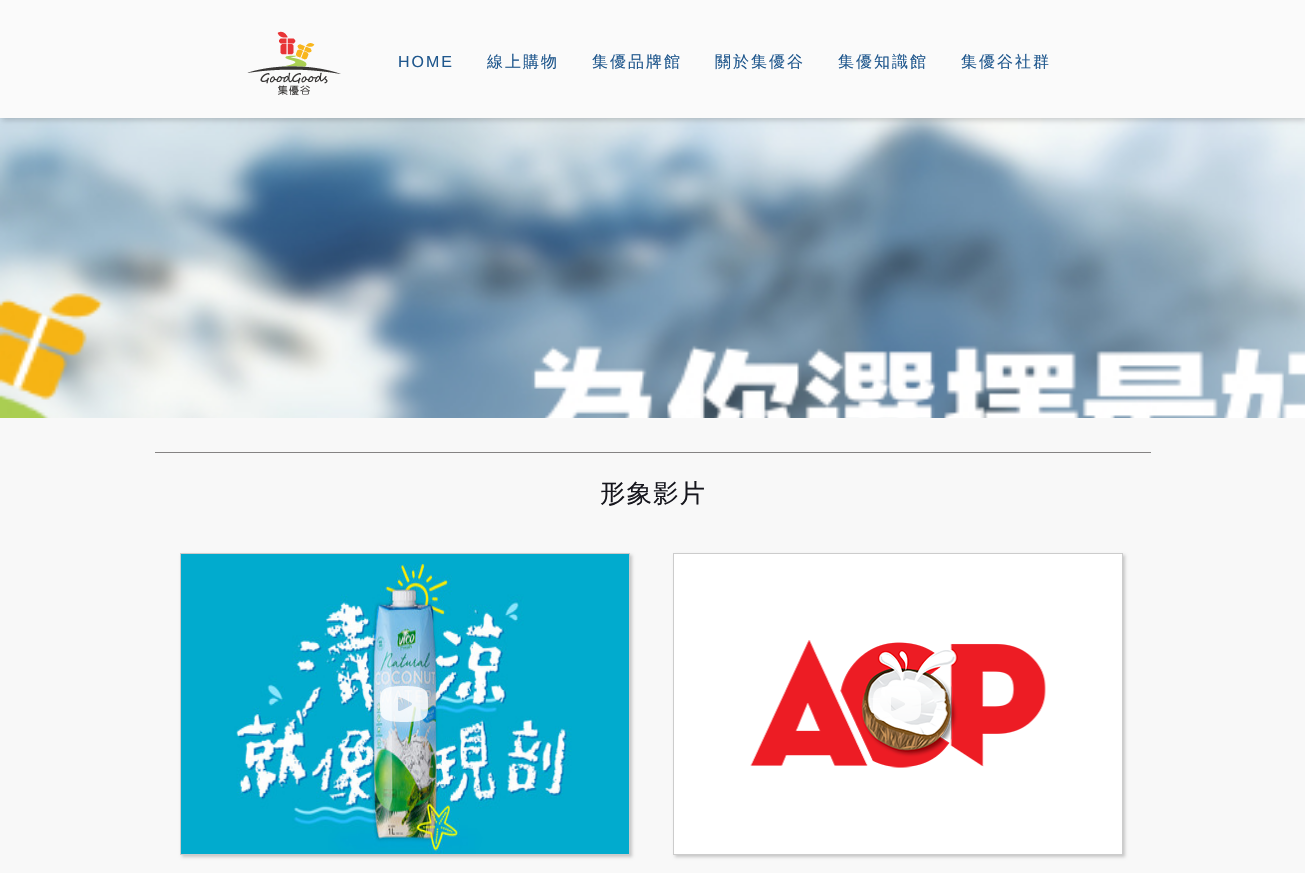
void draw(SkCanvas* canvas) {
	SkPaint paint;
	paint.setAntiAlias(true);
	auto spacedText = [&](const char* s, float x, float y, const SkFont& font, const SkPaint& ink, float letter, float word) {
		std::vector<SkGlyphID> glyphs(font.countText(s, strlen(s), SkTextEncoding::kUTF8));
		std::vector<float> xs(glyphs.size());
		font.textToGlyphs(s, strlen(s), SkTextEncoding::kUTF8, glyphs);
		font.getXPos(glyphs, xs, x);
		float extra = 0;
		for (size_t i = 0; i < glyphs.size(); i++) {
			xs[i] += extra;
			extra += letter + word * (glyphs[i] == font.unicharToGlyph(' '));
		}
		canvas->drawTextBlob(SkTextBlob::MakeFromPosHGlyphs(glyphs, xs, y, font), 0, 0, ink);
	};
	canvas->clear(0xffffffff);
	canvas->drawImageRect(SkImages::DeferredFromEncodedData(SkData::MakeFromFileName("img2.png")), SkRect::MakeXYWH(0, 118, 1305, 300), SkSamplingOptions());
	paint.setColor(0x33000000);
	paint.setMaskFilter(SkMaskFilter::MakeBlur(kNormal_SkBlurStyle, 3));
	canvas->drawRect(SkRect::MakeXYWH(2, 2, 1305, 118), paint);
	paint.setMaskFilter(nullptr);
	paint.setColor(0xfffafafa);
	canvas->drawRect(SkRect::MakeXYWH(0, 0, 1305, 118), paint);
	canvas->drawImageRect(SkImages::DeferredFromEncodedData(SkData::MakeFromFileName("img1.png")), SkRect::MakeXYWH(247, 31, 94, 65), SkSamplingOptions());
	SkFont f1(fontMgr->matchFamilyStyle("Liberation Sans", SkFontStyle::Normal()), 16);
	f1.setSubpixel(true);
	paint.setColor(0xff1f578d);
	spacedText("HOME", 398, 67, f1, paint, 2, 0);
	SkFont f2(fontMgr->matchFamilyStyle("WenQuanYi Zen Hei", SkFontStyle(500, SkFontStyle::kNormal_Width, SkFontStyle::kUpright_Slant)), 16);
	f2.setSubpixel(true);
	spacedText("線上購物", 487, 67, f2, paint, 2, 0);
	spacedText("集優品牌館", 592, 67, f2, paint, 2, 0);
	spacedText("關於集優谷", 715, 67, f2, paint, 2, 0);
	spacedText("集優知識館", 838, 67, f2, paint, 2, 0);
	spacedText("集優谷社群", 961, 67, f2, paint, 2, 0);
	paint.setColor(0xfff8f8f8);
	canvas->drawRect(SkRect::MakeXYWH(0, 418, 1305, 455), paint);
	paint.setColor(0xff858383);
	canvas->drawRect(SkRect::MakeXYWH(155, 452, 996, 1), paint);
	SkFont f3(fontMgr->matchFamilyStyle("WenQuanYi Zen Hei", SkFontStyle(500, SkFontStyle::kNormal_Width, SkFontStyle::kUpright_Slant)), 25.5);
	f3.setSubpixel(true);
	paint.setColor(0xff16161d);
	spacedText("形象影片", 600, 502, f3, paint, 1, 0);
	paint.setColor(0x33000000);
	paint.setMaskFilter(SkMaskFilter::MakeBlur(kNormal_SkBlurStyle, 1.5));
	canvas->drawRect(SkRect::MakeXYWH(182, 555, 450, 302), paint);
	paint.setMaskFilter(nullptr);
	paint.setStroke(true);
	paint.setStrokeWidth(1);
	paint.setColor(0xffcccccc);
	canvas->drawRect(SkRect::MakeXYWH(180.5, 553.5, 449, 301), paint);
	canvas->drawImageRect(SkImages::DeferredFromEncodedData(SkData::MakeFromFileName("img3.png")), SkRect::MakeXYWH(181, 554, 448, 300), SkSamplingOptions());
	canvas->drawImageRect(SkImages::DeferredFromEncodedData(SkData::MakeFromFileName("img4.png")), SkRect::MakeXYWH(380, 686, 48, 36), SkSamplingOptions());
	paint.setStroke(false);
	paint.setColor(0x33000000);
	paint.setMaskFilter(SkMaskFilter::MakeBlur(kNormal_SkBlurStyle, 1.5));
	canvas->drawRect(SkRect::MakeXYWH(675, 555, 450, 302), paint);
	paint.setMaskFilter(nullptr);
	paint.setColor(0xffffffff);
	canvas->drawRect(SkRect::MakeXYWH(673.5, 553.5, 449, 301), paint);
	paint.setStroke(true);
	paint.setColor(0xffcccccc);
	canvas->drawRect(SkRect::MakeXYWH(673.5, 553.5, 449, 301), paint);
	canvas->drawImageRect(SkImages::DeferredFromEncodedData(SkData::MakeFromFileName("img5.png")), SkRect::MakeXYWH(750, 640, 296, 128), SkSamplingOptions());
	canvas->drawImageRect(SkImages::DeferredFromEncodedData(SkData::MakeFromFileName("img6.png")), SkRect::MakeXYWH(873, 686, 48, 36), SkSamplingOptions());
}
